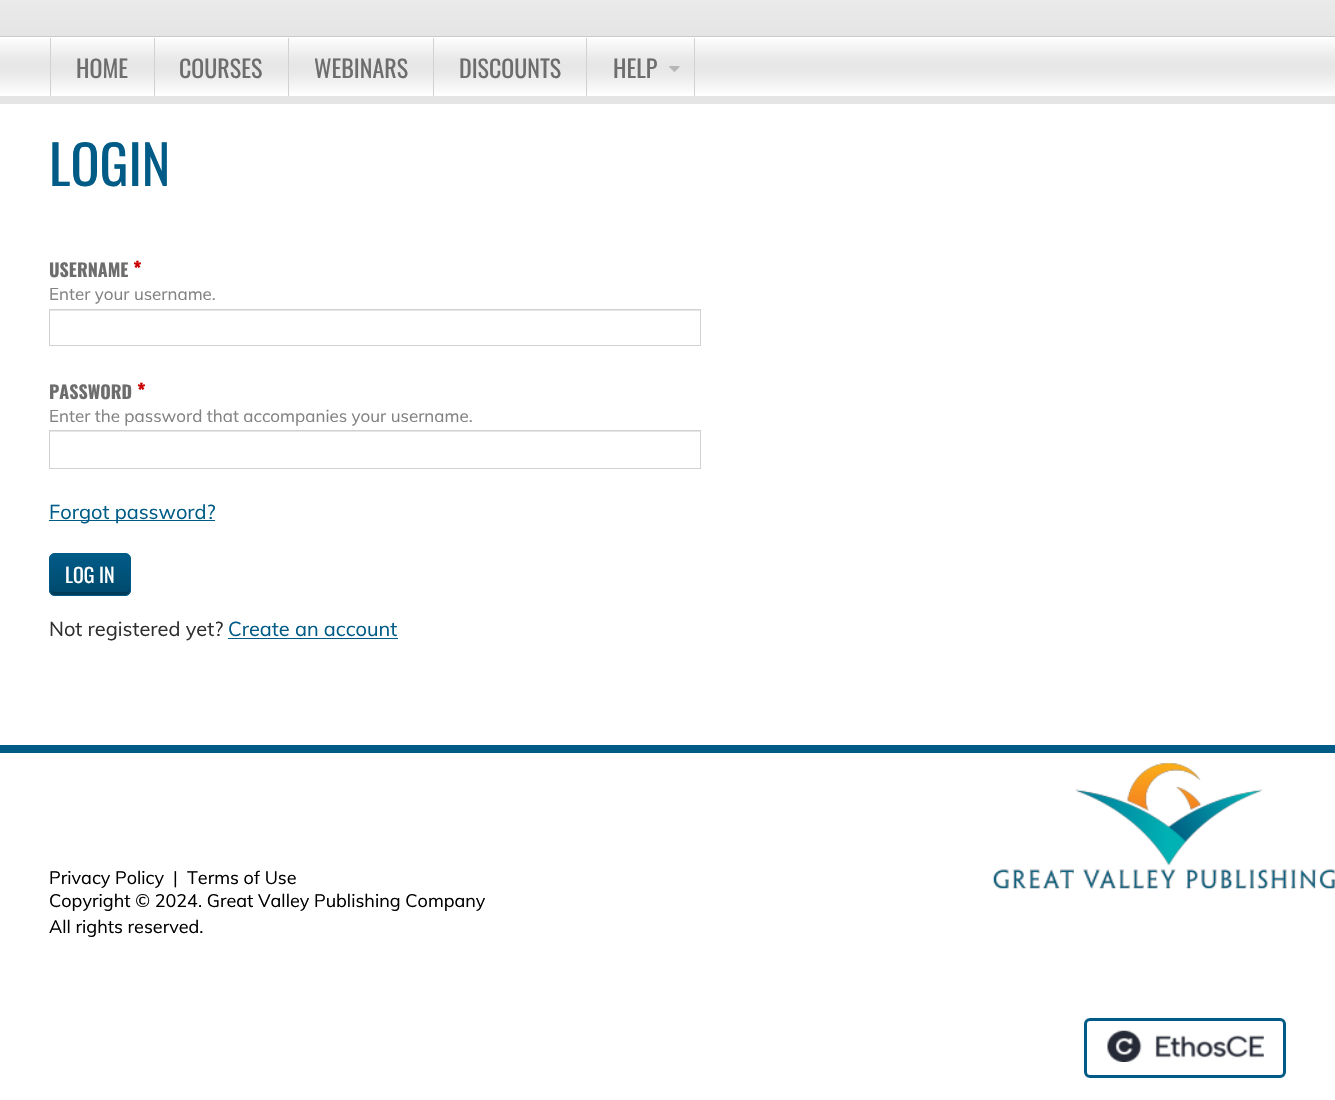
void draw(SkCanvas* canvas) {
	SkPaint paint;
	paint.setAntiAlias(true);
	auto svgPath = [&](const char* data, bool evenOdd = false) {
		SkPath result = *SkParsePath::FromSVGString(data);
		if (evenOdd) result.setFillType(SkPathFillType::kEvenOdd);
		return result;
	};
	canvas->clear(0xffffffff);
	{
		const SkColor colors[] = {0xffe5e5e5, 0xffffffff};
		const float stops[] = {0, 1};
		const SkPoint ends[] = {{668, 36}, {668, -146}};
		paint.setShader(SkGradientShader::MakeLinear(ends, colors, stops, 2, SkTileMode::kClamp));
		paint.setAlpha(255);
	}
	canvas->drawRect(SkRect::MakeXYWH(0, 0, 1335, 36), paint);
	{
		const SkColor colors[] = {0xffffffff, 0xffebebeb, 0xffe6e6e6, 0xffebebeb, 0xffffffff};
		const float stops[] = {0, 0.33, 0.5, 0.66, 1};
		const SkPoint ends[] = {{668, 37}, {668, 96}};
		paint.setShader(SkGradientShader::MakeLinear(ends, colors, stops, 5, SkTileMode::kClamp));
		paint.setAlpha(255);
	}
	canvas->drawRect(SkRect::MakeXYWH(0, 39, 1335, 54), paint);
	paint.setShader(nullptr);
	paint.setColor(0xffcccccc);
	canvas->drawRect(SkRect::MakeXYWH(0, 36, 1335, 1), paint);
	paint.setColor(0xffe5e5e5);
	canvas->drawRect(SkRect::MakeXYWH(0, 96, 1335, 8), paint);
	paint.setColor(0xffd2d2d2);
	canvas->drawRect(SkRect::MakeXYWH(154, 38, 1, 58), paint);
	canvas->drawRect(SkRect::MakeXYWH(50, 38, 1, 58), paint);
	SkFont f1(fontMgr->matchFamilyStyle("Oswald", SkFontStyle::Normal()), 24);
	f1.setSubpixel(true);
	paint.setColor(0xff6d6d6d);
	canvas->drawString("HOME", 76, 78, f1, paint);
	paint.setColor(0xffd2d2d2);
	canvas->drawRect(SkRect::MakeXYWH(288, 38, 1, 58), paint);
	paint.setColor(0xff6d6d6d);
	canvas->drawString("COURSES", 179, 78, f1, paint);
	paint.setColor(0xffd2d2d2);
	canvas->drawRect(SkRect::MakeXYWH(433, 38, 1, 58), paint);
	paint.setColor(0xff6d6d6d);
	canvas->drawString("WEBINARS", 314, 78, f1, paint);
	paint.setColor(0xffd2d2d2);
	canvas->drawRect(SkRect::MakeXYWH(586, 38, 1, 58), paint);
	paint.setColor(0xff6d6d6d);
	canvas->drawString("DISCOUNTS", 459, 78, f1, paint);
	paint.setColor(0xffd2d2d2);
	canvas->drawRect(SkRect::MakeXYWH(694, 38, 1, 58), paint);
	paint.setColor(0xff6d6d6d);
	canvas->drawString("HELP", 613, 78, f1, paint);
	canvas->drawImageRect(SkImages::DeferredFromEncodedData(SkData::MakeFromFileName("img1.png")), SkRect::MakeXYWH(669, 66, 11, 6), SkSamplingOptions());
	SkFont f2(fontMgr->matchFamilyStyle("Oswald", SkFontStyle::Normal()), 54);
	f2.setSubpixel(true);
	paint.setColor(0xff005b87);
	canvas->drawString("LOGIN", 49, 186, f2, paint);
	SkFont f3(fontMgr->matchFamilyStyle("Oswald", SkFontStyle::Bold()), 18);
	f3.setSubpixel(true);
	paint.setColor(0xff6d6d6d);
	canvas->drawString("USERNAME", 49, 277, f3, paint);
	SkFont f4(fontMgr->matchFamilyStyle("Oswald", SkFontStyle::Bold()), 20);
	f4.setSubpixel(true);
	paint.setColor(0xffcc0000);
	canvas->drawString("*", 133, 277, f4, paint);
	SkFont f5(fontMgr->matchFamilyStyle("Muli", SkFontStyle::Normal()), 17);
	f5.setSubpixel(true);
	paint.setColor(0xff828282);
	canvas->drawString("Enter your username.", 49, 300, f5, paint);
	paint.setColor(0xffe6e6e6);
	canvas->drawRect(SkRect::MakeXYWH(50, 310, 650, 1), paint);
	paint.setStroke(true);
	paint.setStrokeWidth(1);
	paint.setColor(0xffd1d1d1);
	canvas->drawRect(SkRect::MakeXYWH(49.5, 309.5, 651, 36), paint);
	paint.setStroke(false);
	paint.setColor(0xff6d6d6d);
	canvas->drawString("PASSWORD", 49, 399, f3, paint);
	paint.setColor(0xffcc0000);
	canvas->drawString("*", 137, 399, f4, paint);
	paint.setColor(0xff828282);
	canvas->drawString("Enter the password that accompanies your username.", 49, 422, f5, paint);
	paint.setColor(0xffe6e6e6);
	canvas->drawRect(SkRect::MakeXYWH(50, 431, 650, 1), paint);
	paint.setStroke(true);
	paint.setColor(0xffd1d1d1);
	canvas->drawRect(SkRect::MakeXYWH(49.5, 430.5, 651, 38), paint);
	paint.setStroke(false);
	paint.setColor(0xff005b87);
	canvas->drawRect(SkRect::MakeXYWH(49, 520, 166, 1), paint);
	SkFont f6(fontMgr->matchFamilyStyle("Muli", SkFontStyle::Normal()), 20);
	f6.setSubpixel(true);
	canvas->drawString("Forgot password?", 49, 519, f6, paint);
	canvas->drawRoundRect(SkRect::MakeXYWH(49, 553, 82, 43), 6, 6, paint);
	canvas->save();
	canvas->clipPath(svgPath("M55 553H125C128.5 553 131 555.5 131 559V590C131 593.5 128.5 596 125 596H55C51.5 596 49 593.5 49 590V559C49 555.5 51.5 553 55 553Z"), true);
	{
		const SkColor colors[] = {0x33000000, 0x00000000};
		const float stops[] = {0, 1};
		const SkPoint ends[] = {{90, 595}, {90, 554}};
		paint.setShader(SkGradientShader::MakeLinear(ends, colors, stops, 2, SkTileMode::kClamp));
		paint.setAlpha(255);
	}
	canvas->drawRect(SkRect::MakeXYWH(49, 558, 82, 37), paint);
	canvas->restore();
	paint.setShader(nullptr);
	paint.setColor(0x33000000);
	canvas->drawPath(svgPath("M50 590C50 598 62 595 67 595H113C118 595 130 598 130 590C129 591 127 592 125 592H55C53 592 51 591 50 590Z"), paint);
	paint.setStroke(true);
	paint.setColor(0xff005b87);
	canvas->drawRoundRect(SkRect::MakeXYWH(49.5, 553.5, 81, 42), 5.5, 5.5, paint);
	SkFont f7(fontMgr->matchFamilyStyle("Oswald", SkFontStyle::Normal()), 20);
	f7.setSubpixel(true);
	paint.setStroke(false);
	paint.setColor(0xffffffff);
	canvas->drawString("LOG IN", 65, 583, f7, paint);
	paint.setColor(0xff2f2f2f);
	canvas->drawString("Not registered yet?", 49, 636, f6, paint);
	paint.setColor(0xff005b87);
	canvas->drawString("Create an account", 228, 636, f6, paint);
	canvas->drawRect(SkRect::MakeXYWH(228, 638, 170, 1), paint);
	canvas->drawImageRect(SkImages::DeferredFromEncodedData(SkData::MakeFromFileName("img2.png")), SkRect::MakeXYWH(993, 763, 342, 126), SkSamplingOptions());
	canvas->drawRect(SkRect::MakeXYWH(0, 745, 1335, 8), paint);
	SkFont f8(fontMgr->matchFamilyStyle("Muli", SkFontStyle::Normal()), 18);
	f8.setSubpixel(true);
	paint.setColor(0xff000000);
	canvas->drawString("Privacy Policy", 49, 884, f8, paint);
	canvas->drawString("|", 173, 884, f8, paint);
	canvas->drawString("Terms of Use", 187, 884, f8, paint);
	canvas->drawString("Copyright © 2024. Great Valley Publishing Company", 49, 907, f8, paint);
	canvas->drawString("All rights reserved.", 49, 933, f8, paint);
	canvas->drawImageRect(SkImages::DeferredFromEncodedData(SkData::MakeFromFileName("img3.png")), SkRect::MakeXYWH(1107, 1030, 157, 32), SkSamplingOptions());
	paint.setStroke(true);
	paint.setStrokeWidth(3);
	paint.setColor(0xff005b87);
	canvas->drawRoundRect(SkRect::MakeXYWH(1085.5, 1019.5, 199, 57), 4.5, 4.5, paint);
}
